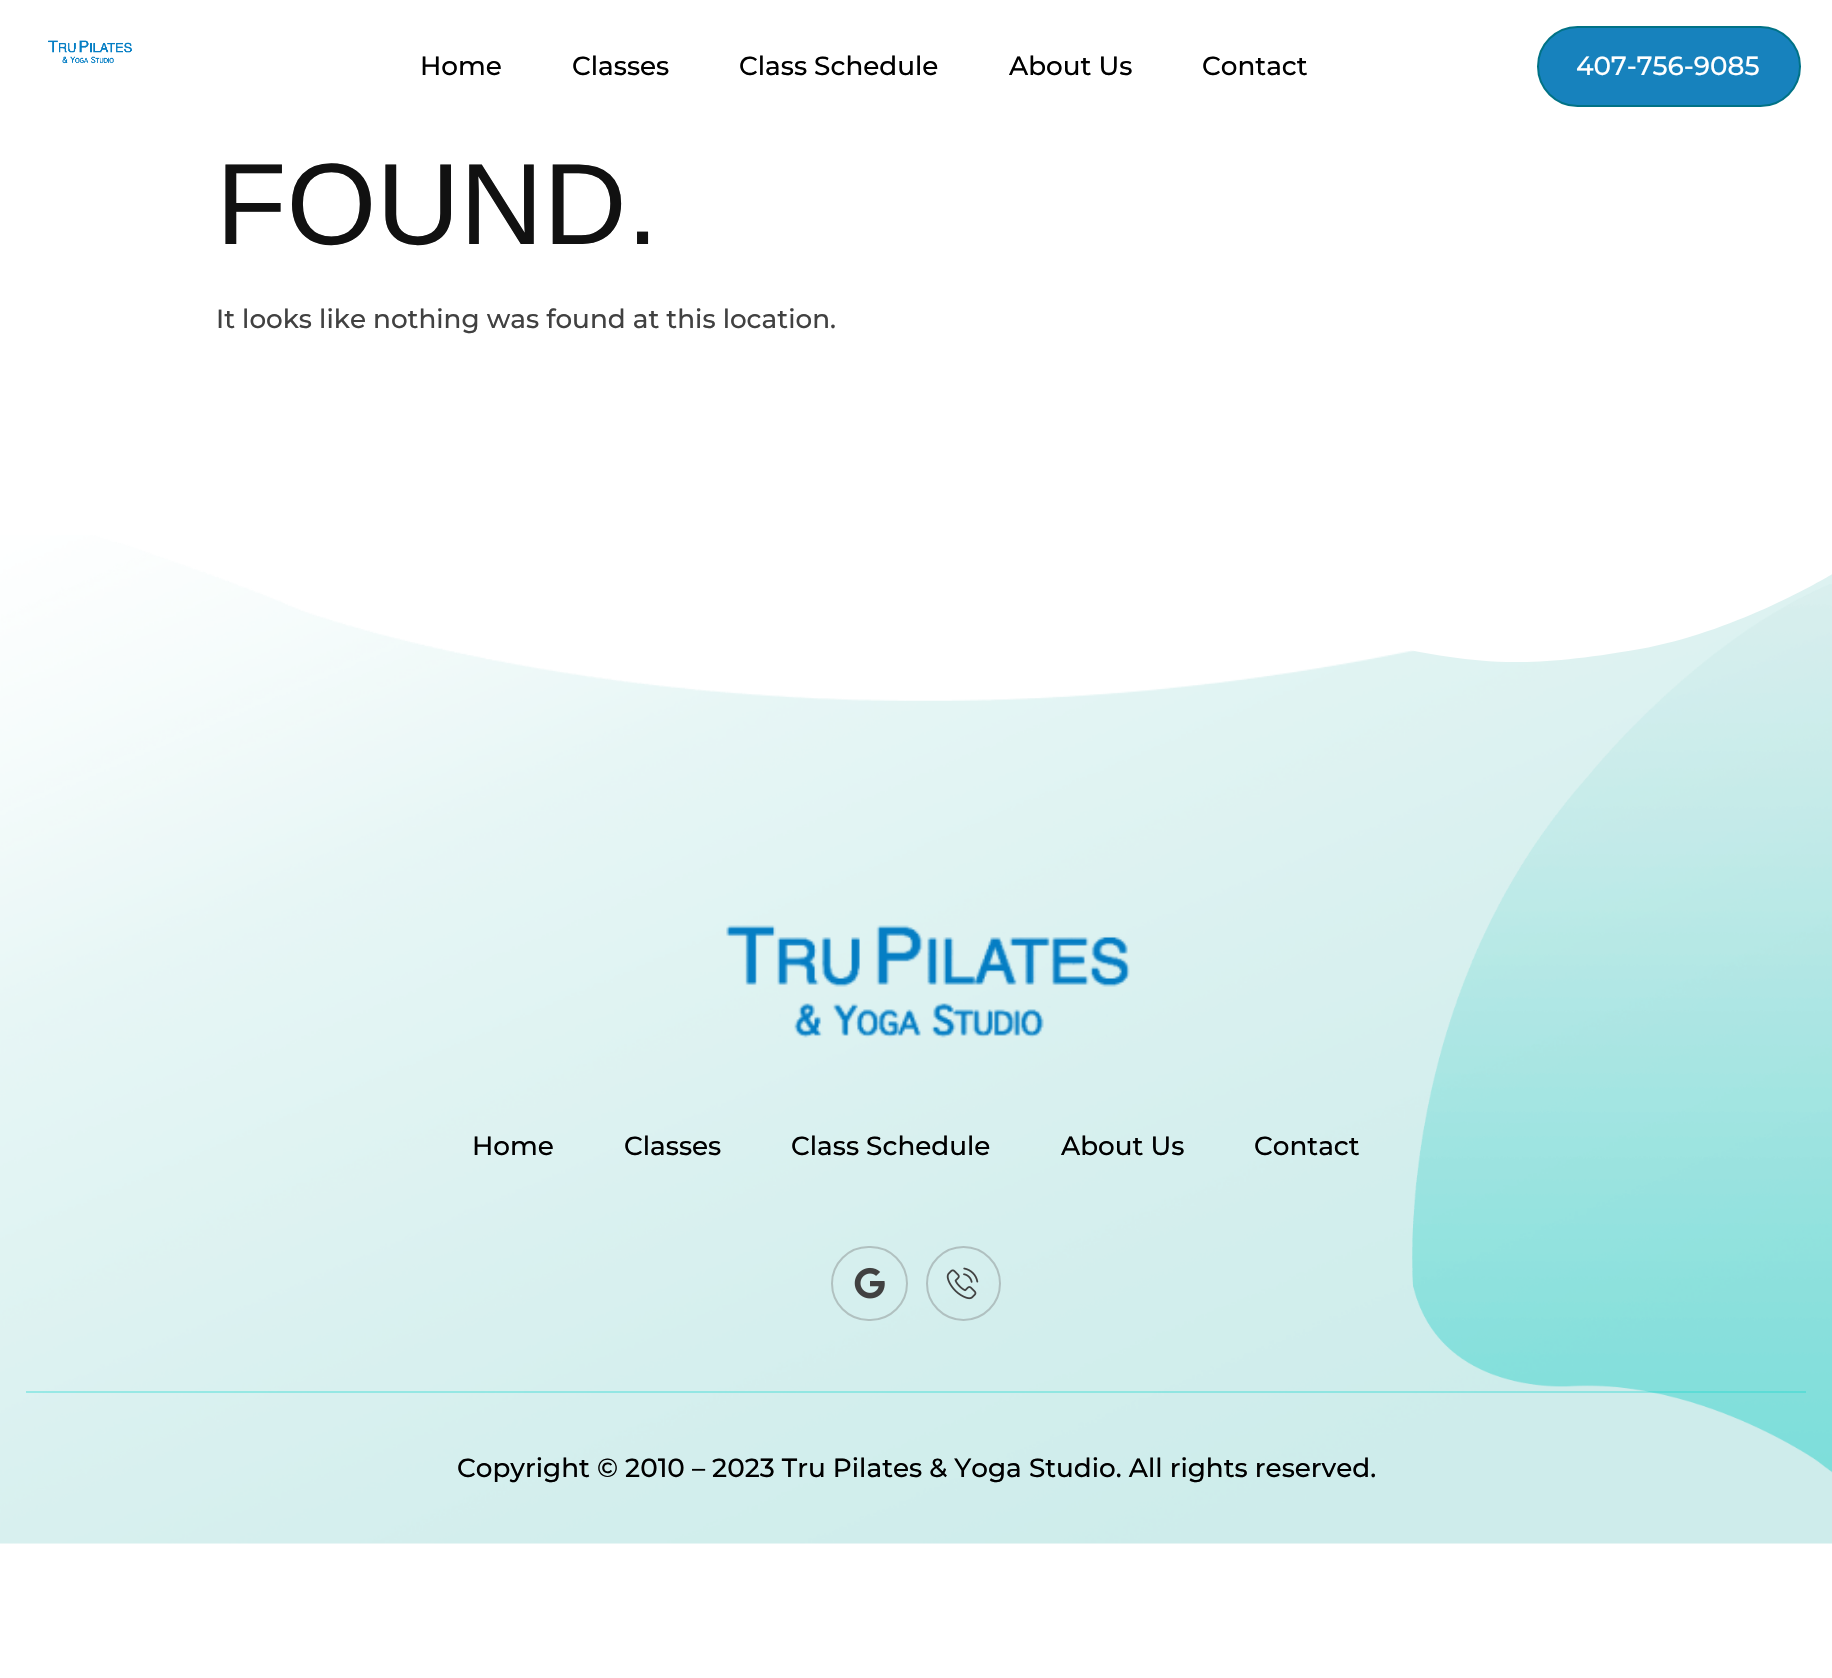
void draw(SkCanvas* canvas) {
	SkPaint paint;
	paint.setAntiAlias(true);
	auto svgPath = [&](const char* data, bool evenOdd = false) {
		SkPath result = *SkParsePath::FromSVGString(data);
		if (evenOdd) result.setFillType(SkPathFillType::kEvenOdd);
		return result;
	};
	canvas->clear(0xffffffff);
	canvas->drawImageRect(SkImages::DeferredFromEncodedData(SkData::MakeFromFileName("img1.png")), SkRect::MakeXYWH(48, 40, 84, 24), SkSamplingOptions());
	SkFont f1(fontMgr->matchFamilyStyle("Montserrat", SkFontStyle(500, SkFontStyle::kNormal_Width, SkFontStyle::kUpright_Slant)), 26.25);
	f1.setSubpixel(true);
	paint.setColor(0xff000000);
	canvas->drawString("Home", 420, 75, f1, paint);
	canvas->drawString("Classes", 572, 75, f1, paint);
	canvas->drawString("Class Schedule", 739, 75, f1, paint);
	canvas->drawString("About Us", 1009, 75, f1, paint);
	canvas->drawString("Contact", 1202, 75, f1, paint);
	paint.setColor(0xff1782bd);
	canvas->drawRoundRect(SkRect::MakeXYWH(1538, 27, 262, 79), 39.5, 39.5, paint);
	paint.setStroke(true);
	paint.setStrokeWidth(2);
	paint.setColor(0xff007286);
	canvas->drawRoundRect(SkRect::MakeXYWH(1538, 27, 262, 79), 39.5, 39.5, paint);
	paint.setStroke(false);
	paint.setColor(0xffffffff);
	canvas->drawString("407-756-9085", 1576, 75, f1, paint);
	SkFont f2(fontMgr->matchFamilyStyle("Liberation Sans", SkFontStyle::Normal()), 115.5);
	f2.setSubpixel(true);
	paint.setColor(0xff111111);
	canvas->drawString("FOUND.", 216, 244, f2, paint);
	paint.setColor(0xff414141);
	canvas->drawString("It looks like nothing was found at this location.", 216, 328, f1, paint);
	canvas->drawImageRect(SkImages::DeferredFromEncodedData(SkData::MakeFromFileName("img2.png")), SkRect::MakeXYWH(1412, 584, 420, 889), SkSamplingOptions());
	canvas->drawImageRect(SkImages::DeferredFromEncodedData(SkData::MakeFromFileName("img3.png")), SkRect::MakeXYWH(0, 535, 1832, 1009), SkSamplingOptions());
	paint.setColor(0xffffffff);
	canvas->drawPath(svgPath("M774 385C815 378 868 386 912 401C956 416 1042 471 1097 508C1236 604 1342 641 1450 657C1493 663 1539 667 1640 649C1740 631 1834 573 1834 573V366H0V456C0 456 132 554 290 548C362 546 461 528 536 481C575 456 632 426 682 408C732 389 755 388 774 385Z"), paint);
	canvas->drawImageRect(SkImages::DeferredFromEncodedData(SkData::MakeFromFileName("img4.png")), SkRect::MakeXYWH(726, 925, 404, 113), SkSamplingOptions());
	paint.setColor(0xff000000);
	canvas->drawString("Home", 472, 1155, f1, paint);
	canvas->drawString("Classes", 624, 1155, f1, paint);
	canvas->drawString("Class Schedule", 791, 1155, f1, paint);
	canvas->drawString("About Us", 1061, 1155, f1, paint);
	canvas->drawString("Contact", 1254, 1155, f1, paint);
	paint.setStroke(true);
	paint.setColor(0xffb1c1c0);
	canvas->drawRoundRect(SkRect::MakeXYWH(832, 1247, 75, 73), 36.5, 36.5, paint);
	canvas->drawImageRect(SkImages::DeferredFromEncodedData(SkData::MakeFromFileName("img5.png")), SkRect::MakeXYWH(854, 1267, 31, 32), SkSamplingOptions());
	paint.setColor(0xffb0c0c0);
	canvas->drawCircle(963.5, 1283.5, 36.5, paint);
	canvas->drawImageRect(SkImages::DeferredFromEncodedData(SkData::MakeFromFileName("img6.png")), SkRect::MakeXYWH(946, 1267, 33, 33), SkSamplingOptions());
	paint.setStroke(false);
	paint.setColor(0x5715d5cc);
	canvas->drawRect(SkRect::MakeXYWH(26, 1391, 1780, 2), paint);
	paint.setColor(0xff000000);
	canvas->drawString("Copyright © 2010 – 2023 Tru Pilates & Yoga Studio. All rights reserved.", 457, 1477, f1, paint);
}
